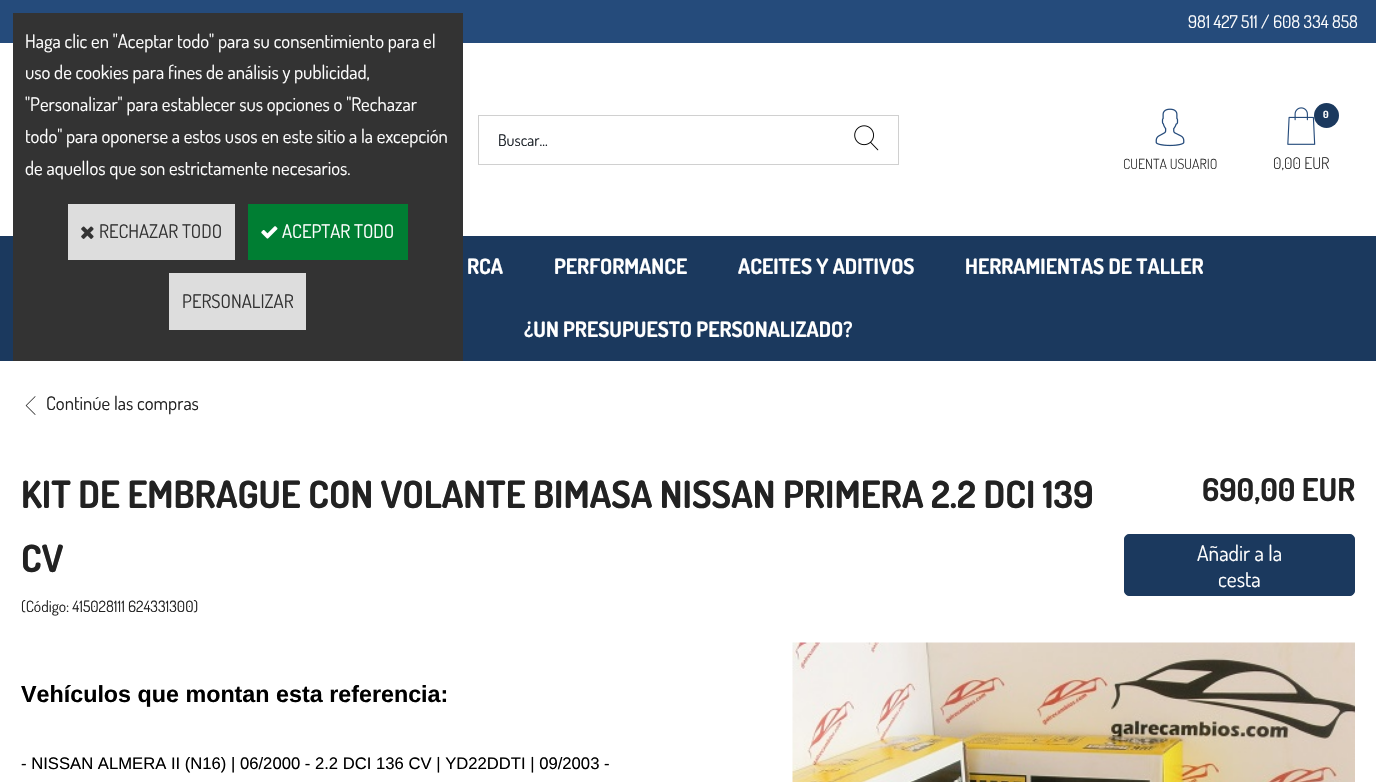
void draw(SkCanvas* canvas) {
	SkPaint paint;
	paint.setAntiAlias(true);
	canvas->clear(0xffffffff);
	paint.setColor(0xff254b7b);
	canvas->drawRect(SkRect::MakeXYWH(0, 0, 1376, 43), paint);
	paint.setColor(0xff1b395e);
	canvas->drawRect(SkRect::MakeXYWH(0, 236, 1376, 125), paint);
	paint.setColor(0xff333333);
	canvas->drawRect(SkRect::MakeXYWH(13, 13, 450, 348), paint);
	SkFont f1(fontMgr->matchFamilyStyle("Dosis", SkFontStyle::Normal()), 18.75);
	f1.setSubpixel(true);
	paint.setColor(0xffffffff);
	canvas->drawString("Haga clic en \"Aceptar todo\" para su consentimiento para el", 25, 48, f1, paint);
	canvas->drawString("uso de cookies para fines de análisis y publicidad,", 25, 79, f1, paint);
	canvas->drawString("\"Personalizar\" para establecer sus opciones o \"Rechazar", 25, 111, f1, paint);
	canvas->drawString("todo\" para oponerse a estos usos en este sitio a la excepción", 25, 143, f1, paint);
	canvas->drawString("de aquellos que son estrictamente necesarios.", 25, 175, f1, paint);
	paint.setColor(0xffdddddd);
	canvas->drawRect(SkRect::MakeXYWH(68, 204, 167, 56), paint);
	canvas->drawImageRect(SkImages::DeferredFromEncodedData(SkData::MakeFromFileName("img1.png")), SkRect::MakeXYWH(81, 226, 13, 13), SkSamplingOptions());
	paint.setColor(0xff333333);
	canvas->drawString("RECHAZAR TODO", 99, 238, f1, paint);
	paint.setColor(0xff007e33);
	canvas->drawRect(SkRect::MakeXYWH(248, 204, 160, 56), paint);
	canvas->drawImageRect(SkImages::DeferredFromEncodedData(SkData::MakeFromFileName("img2.png")), SkRect::MakeXYWH(261, 226, 17, 13), SkSamplingOptions());
	paint.setColor(0xffffffff);
	canvas->drawString("ACEPTAR TODO", 282, 238, f1, paint);
	paint.setColor(0xffdddddd);
	canvas->drawRect(SkRect::MakeXYWH(169, 273, 137, 57), paint);
	paint.setColor(0xff333333);
	canvas->drawString("PERSONALIZAR", 182, 308, f1, paint);
	SkFont f2(fontMgr->matchFamilyStyle("Dosis", SkFontStyle::Normal()), 17.5);
	f2.setSubpixel(true);
	paint.setColor(0xffffffff);
	canvas->drawString("981 427 511 / 608 334 858", 1188, 28, f2, paint);
	paint.setColor(0xffd0d0d0);
	canvas->drawRect(SkRect::MakeXYWH(478, 115, 421, 1), paint);
	canvas->drawRect(SkRect::MakeXYWH(478, 164, 357, 1), paint);
	canvas->drawRect(SkRect::MakeXYWH(478, 115, 1, 50), paint);
	SkFont f3(fontMgr->matchFamilyStyle("Dosis", SkFontStyle::Normal()), 16);
	f3.setSubpixel(true);
	paint.setColor(0xff1a1f26);
	canvas->drawString("Buscar...", 498, 146, f3, paint);
	paint.setColor(0xffd0d0d0);
	canvas->drawRect(SkRect::MakeXYWH(898, 115, 1, 50), paint);
	canvas->drawRect(SkRect::MakeXYWH(835, 164, 64, 1), paint);
	canvas->drawImageRect(SkImages::DeferredFromEncodedData(SkData::MakeFromFileName("img3.png")), SkRect::MakeXYWH(854, 125, 25, 26), SkSamplingOptions());
	canvas->drawImageRect(SkImages::DeferredFromEncodedData(SkData::MakeFromFileName("img4.png")), SkRect::MakeXYWH(1155, 108, 30, 39), SkSamplingOptions());
	SkFont f4(fontMgr->matchFamilyStyle("Dosis", SkFontStyle(300, SkFontStyle::kNormal_Width, SkFontStyle::kUpright_Slant)), 14);
	f4.setSubpixel(true);
	paint.setColor(0xff222222);
	canvas->drawString("CUENTA USUARIO", 1123, 169, f4, paint);
	canvas->drawImageRect(SkImages::DeferredFromEncodedData(SkData::MakeFromFileName("img5.png")), SkRect::MakeXYWH(1287, 107, 29, 38), SkSamplingOptions());
	paint.setColor(0xff1b395e);
	canvas->drawCircle(1326.5, 115.5, 12.5, paint);
	SkFont f5(fontMgr->matchFamilyStyle("Dosis", SkFontStyle::Bold()), 10);
	f5.setSubpixel(true);
	paint.setColor(0xffffffff);
	canvas->drawString("0", 1323, 118, f5, paint);
	SkFont f6(fontMgr->matchFamilyStyle("Dosis", SkFontStyle(300, SkFontStyle::kNormal_Width, SkFontStyle::kUpright_Slant)), 16);
	f6.setSubpixel(true);
	paint.setColor(0xff222222);
	canvas->drawString("0,00 EUR", 1273, 169, f6, paint);
	SkFont f7(fontMgr->matchFamilyStyle("Dosis", SkFontStyle::Bold()), 21.25);
	f7.setSubpixel(true);
	paint.setColor(0xffffffff);
	canvas->drawString("RCA", 467, 274, f7, paint);
	canvas->drawString("PERFORMANCE", 554, 274, f7, paint);
	canvas->drawString("ACEITES Y ADITIVOS", 738, 274, f7, paint);
	canvas->drawString("HERRAMIENTAS DE TALLER", 965, 274, f7, paint);
	canvas->drawString("¿UN PRESUPUESTO PERSONALIZADO?", 524, 337, f7, paint);
	canvas->drawImageRect(SkImages::DeferredFromEncodedData(SkData::MakeFromFileName("img6.png")), SkRect::MakeXYWH(25, 396, 11, 19), SkSamplingOptions());
	paint.setColor(0xff222222);
	canvas->drawString("Continúe las compras", 46, 410, f1, paint);
	SkFont f8(fontMgr->matchFamilyStyle("Dosis", SkFontStyle::Bold()), 37.5);
	f8.setSubpixel(true);
	canvas->drawString("KIT DE EMBRAGUE CON VOLANTE BIMASA NISSAN PRIMERA 2.2 DCI 139", 21, 508, f8, paint);
	canvas->drawString("CV", 21, 572, f8, paint);
	SkFont f9(fontMgr->matchFamilyStyle("Dosis", SkFontStyle::Normal()), 15.6);
	f9.setSubpixel(true);
	canvas->drawString("(Código: 415028111 624331300)", 21, 612, f9, paint);
	SkFont f10(fontMgr->matchFamilyStyle("Dosis", SkFontStyle::Bold()), 31.5);
	f10.setSubpixel(true);
	canvas->drawString("690,00 EUR", 1202, 501, f10, paint);
	paint.setColor(0xff1b395e);
	canvas->drawRoundRect(SkRect::MakeXYWH(1124.5, 534.5, 230, 61), 4.5, 4.5, paint);
	paint.setStroke(true);
	paint.setStrokeWidth(1);
	canvas->drawRoundRect(SkRect::MakeXYWH(1124.5, 534.5, 230, 61), 4.5, 4.5, paint);
	SkFont f11(fontMgr->matchFamilyStyle("Dosis", SkFontStyle::Normal()), 21.5);
	f11.setSubpixel(true);
	paint.setStroke(false);
	paint.setColor(0xffffffff);
	canvas->drawString("Añadir a la", 1197, 561, f11, paint);
	canvas->drawString("cesta", 1218, 587, f11, paint);
	SkFont f12(fontMgr->matchFamilyStyle("Liberation Sans", SkFontStyle::Bold()), 23.3);
	f12.setSubpixel(true);
	paint.setColor(0xff000000);
	canvas->drawString("Vehículos que montan esta referencia:", 21, 702, f12, paint);
	SkFont f13(fontMgr->matchFamilyStyle("Liberation Sans", SkFontStyle::Normal()), 16.65);
	f13.setSubpixel(true);
	canvas->drawString("- NISSAN ALMERA II (N16) | 06/2000 - 2.2 DCI 136 CV | YD22DDTI | 09/2003 -", 21, 769, f13, paint);
	canvas->drawImageRect(SkImages::DeferredFromEncodedData(SkData::MakeFromFileName("img7.png")), SkRect::MakeXYWH(792, 642, 563, 140), SkSamplingOptions());
}
